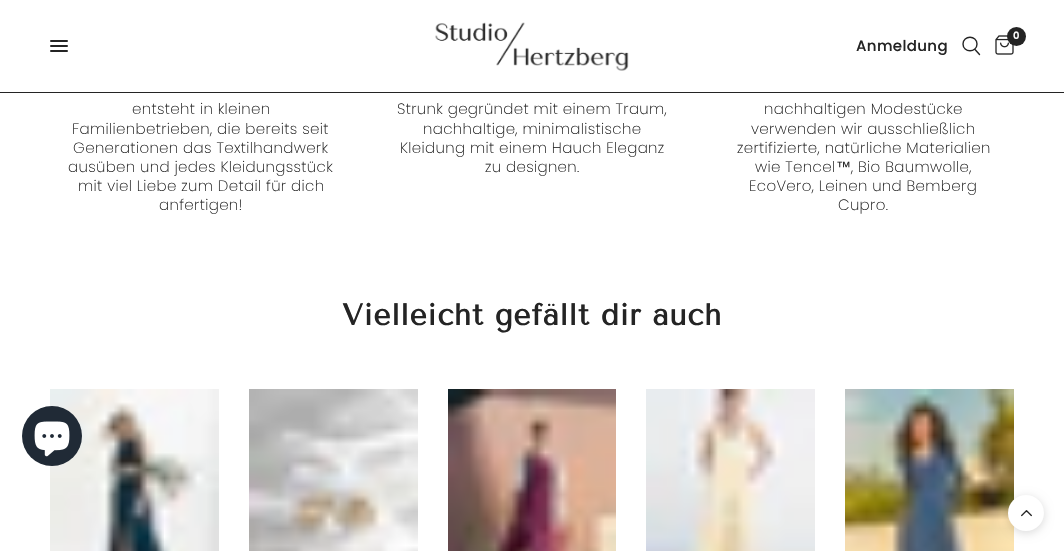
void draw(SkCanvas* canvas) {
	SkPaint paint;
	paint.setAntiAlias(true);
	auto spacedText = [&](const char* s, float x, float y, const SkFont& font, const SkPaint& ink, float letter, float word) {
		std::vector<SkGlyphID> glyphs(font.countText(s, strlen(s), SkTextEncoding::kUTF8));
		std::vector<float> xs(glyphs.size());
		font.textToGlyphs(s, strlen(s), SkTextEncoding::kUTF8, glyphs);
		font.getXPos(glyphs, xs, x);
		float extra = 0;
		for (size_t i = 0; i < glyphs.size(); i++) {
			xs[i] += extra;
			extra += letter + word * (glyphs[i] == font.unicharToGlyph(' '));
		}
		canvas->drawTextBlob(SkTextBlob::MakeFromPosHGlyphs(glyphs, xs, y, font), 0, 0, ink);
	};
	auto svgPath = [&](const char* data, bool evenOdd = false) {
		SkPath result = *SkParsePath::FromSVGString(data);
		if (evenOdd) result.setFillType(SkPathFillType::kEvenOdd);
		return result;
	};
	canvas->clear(0xffffffff);
	paint.setColor(0xff242424);
	canvas->drawRect(SkRect::MakeXYWH(0, 92, 1064, 1), paint);
	canvas->drawRoundRect(SkRect::MakeXYWH(50, 40, 18, 2), 1, 1, paint);
	canvas->drawRoundRect(SkRect::MakeXYWH(50, 45, 18, 2), 1, 1, paint);
	canvas->drawRoundRect(SkRect::MakeXYWH(50, 50, 18, 2), 1, 1, paint);
	canvas->drawImageRect(SkImages::DeferredFromEncodedData(SkData::MakeFromFileName("img1.png")), SkRect::MakeXYWH(435, 22, 194, 49), SkSamplingOptions());
	canvas->drawImageRect(SkImages::DeferredFromEncodedData(SkData::MakeFromFileName("img2.png")), SkRect::MakeXYWH(995, 35, 19, 20), SkSamplingOptions());
	canvas->drawCircle(1016.5, 36.5, 9.5, paint);
	SkFont f1(fontMgr->matchFamilyStyle("Poppins", SkFontStyle(600, SkFontStyle::kNormal_Width, SkFontStyle::kUpright_Slant)), 10);
	f1.setSubpixel(true);
	paint.setColor(0xffffffff);
	spacedText("0", 1013, 39, f1, paint, 0.35, 0);
	SkFont f2(fontMgr->matchFamilyStyle("Poppins", SkFontStyle(500, SkFontStyle::kNormal_Width, SkFontStyle::kUpright_Slant)), 15);
	f2.setSubpixel(true);
	paint.setColor(0xff242424);
	spacedText("Anmeldung", 856, 51, f2, paint, 0.35, 0);
	paint.setStroke(true);
	paint.setStrokeWidth(1.4);
	paint.setStrokeCap(SkPaint::kRound_Cap);
	paint.setStrokeJoin(SkPaint::kRound_Join);
	canvas->drawPath(svgPath("M975 49.5L979.5 54.5M977 44C977 53 963 53 963 44C963 35 977 35 977 44Z"), paint);
	SkFont f3(fontMgr->matchFamilyStyle("Poppins", SkFontStyle(300, SkFontStyle::kNormal_Width, SkFontStyle::kUpright_Slant)), 15);
	f3.setSubpixel(true);
	paint.setStroke(false);
	spacedText("entsteht in kleinen", 132, 114, f3, paint, 0.35, 0);
	spacedText("Familienbetrieben, die bereits seit", 72, 134, f3, paint, 0.35, 0);
	spacedText("Generationen das Textilhandwerk", 73, 153, f3, paint, 0.35, 0);
	spacedText("ausüben und jedes Kleidungsstück", 68, 172, f3, paint, 0.35, 0);
	spacedText("mit viel Liebe zum Detail für dich", 78, 191, f3, paint, 0.35, 0);
	spacedText("anfertigen!", 159, 210, f3, paint, 0.35, 0);
	spacedText("Strunk gegründet mit einem Traum,", 397, 114, f3, paint, 0.35, 0);
	spacedText("nachhaltige, minimalistische", 423, 134, f3, paint, 0.35, 0);
	spacedText("Kleidung mit einem Hauch Eleganz", 400, 153, f3, paint, 0.35, 0);
	spacedText("zu designen.", 485, 172, f3, paint, 0.35, 0);
	spacedText("nachhaltigen Modestücke", 764, 114, f3, paint, 0.35, 0);
	spacedText("verwenden wir ausschließlich", 751, 134, f3, paint, 0.35, 0);
	spacedText("zertifizierte, natürliche Materialien", 737, 153, f3, paint, 0.35, 0);
	spacedText("wie Tencel", 755, 172, f3, paint, 0.35, 0);
	SkFont f4(fontMgr->matchFamilyStyle("Liberation Sans", SkFontStyle::Normal()), 15);
	f4.setSubpixel(true);
	spacedText("™", 836, 172, f4, paint, 0.35, 0);
	spacedText(", Bio Baumwolle,", 851, 172, f3, paint, 0.35, 0);
	spacedText("EcoVero, Leinen und Bemberg", 749, 191, f3, paint, 0.35, 0);
	spacedText("Cupro.", 838, 210, f3, paint, 0.35, 0);
	SkFont f5(fontMgr->matchFamilyStyle("Tenor Sans", SkFontStyle::Bold()), 30);
	f5.setSubpixel(true);
	spacedText("Vielleicht gefällt dir auch", 342, 325, f5, paint, 0.6, 0);
	canvas->drawImageRect(SkImages::DeferredFromEncodedData(SkData::MakeFromFileName("img3.png")), SkRect::MakeXYWH(50, 389, 169, 162), SkSamplingOptions());
	canvas->drawImageRect(SkImages::DeferredFromEncodedData(SkData::MakeFromFileName("img4.png")), SkRect::MakeXYWH(249, 389, 169, 162), SkSamplingOptions());
	canvas->drawImageRect(SkImages::DeferredFromEncodedData(SkData::MakeFromFileName("img5.png")), SkRect::MakeXYWH(448, 389, 168, 162), SkSamplingOptions());
	canvas->drawImageRect(SkImages::DeferredFromEncodedData(SkData::MakeFromFileName("img6.png")), SkRect::MakeXYWH(646, 389, 169, 162), SkSamplingOptions());
	canvas->drawImageRect(SkImages::DeferredFromEncodedData(SkData::MakeFromFileName("img7.png")), SkRect::MakeXYWH(845, 389, 169, 162), SkSamplingOptions());
	paint.setColor(0xff202a36);
	canvas->drawCircle(52, 436, 30, paint);
	canvas->drawImageRect(SkImages::DeferredFromEncodedData(SkData::MakeFromFileName("img8.png")), SkRect::MakeXYWH(34, 421, 36, 36), SkSamplingOptions());
	paint.setColor(0x26000000);
	paint.setMaskFilter(SkMaskFilter::MakeBlur(kNormal_SkBlurStyle, 5));
	canvas->drawRoundRect(SkRect::MakeXYWH(1008, 497, 36, 36), 18, 18, paint);
	paint.setMaskFilter(nullptr);
	paint.setColor(0xffffffff);
	canvas->drawCircle(1026, 513, 18, paint);
	canvas->drawImageRect(SkImages::DeferredFromEncodedData(SkData::MakeFromFileName("img9.png")), SkRect::MakeXYWH(1021, 510, 11, 7), SkSamplingOptions());
}
